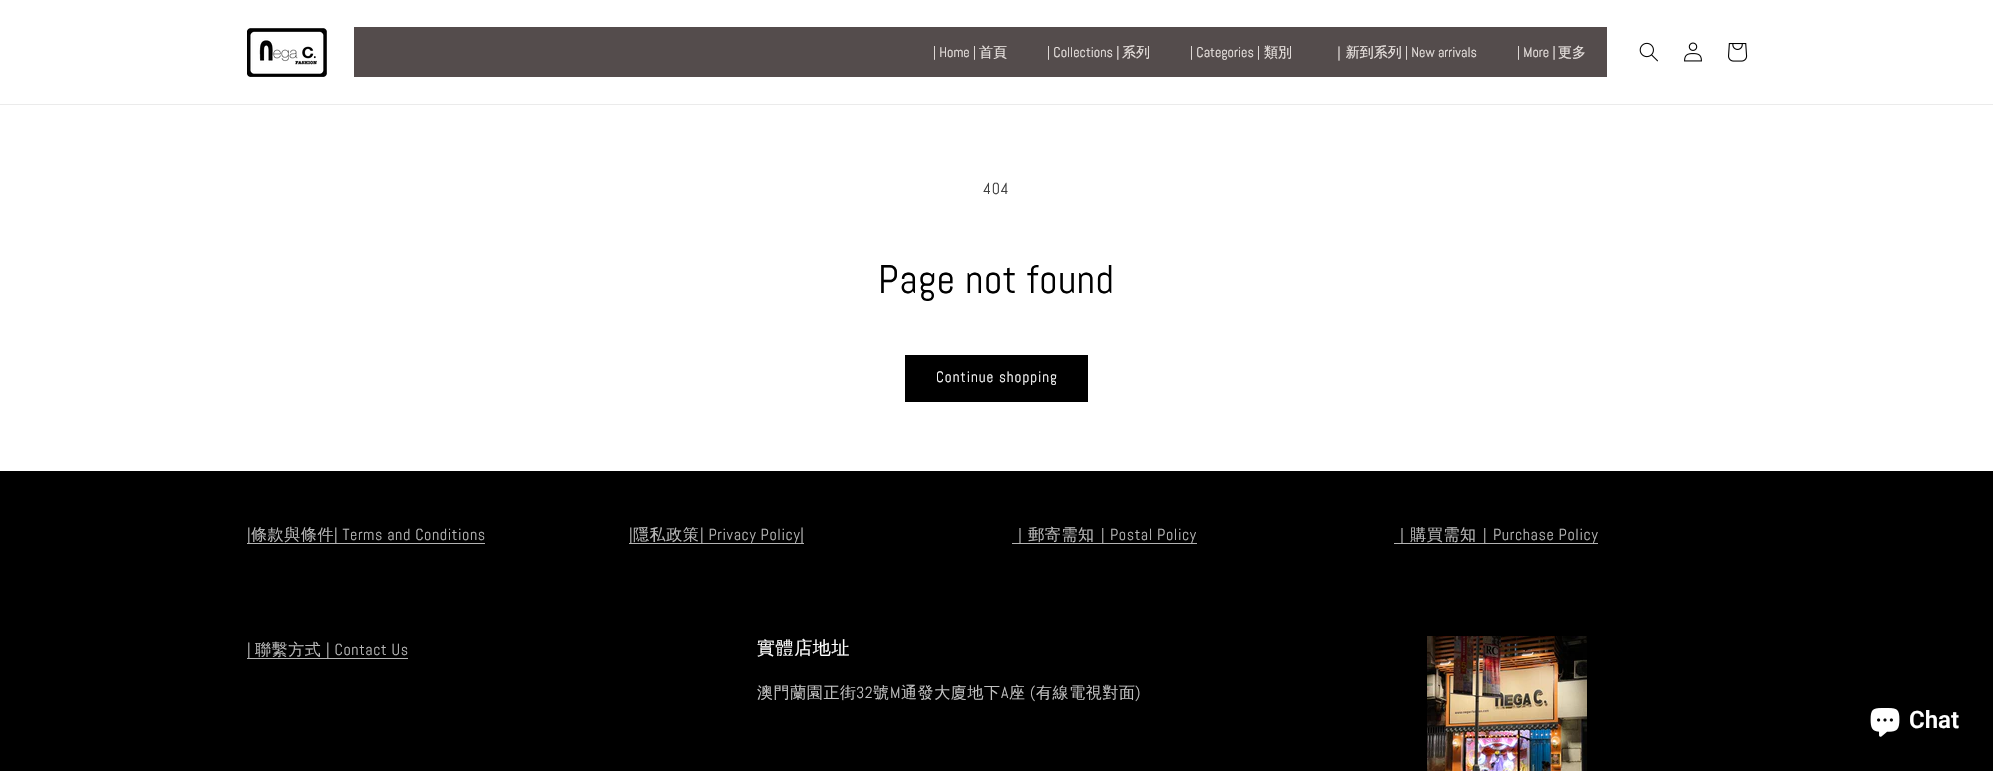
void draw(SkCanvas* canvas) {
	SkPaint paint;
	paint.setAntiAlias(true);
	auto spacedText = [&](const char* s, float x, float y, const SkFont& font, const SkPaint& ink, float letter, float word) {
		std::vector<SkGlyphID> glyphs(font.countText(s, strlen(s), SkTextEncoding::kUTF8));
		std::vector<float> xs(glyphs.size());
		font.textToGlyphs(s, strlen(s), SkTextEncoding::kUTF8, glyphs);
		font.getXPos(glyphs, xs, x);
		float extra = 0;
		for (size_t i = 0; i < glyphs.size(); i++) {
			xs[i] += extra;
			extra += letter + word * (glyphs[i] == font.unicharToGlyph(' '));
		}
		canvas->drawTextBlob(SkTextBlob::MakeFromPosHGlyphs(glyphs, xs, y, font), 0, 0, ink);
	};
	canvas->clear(0xffffffff);
	paint.setColor(0xffebebeb);
	canvas->drawRect(SkRect::MakeXYWH(0, 104, 1993, 1), paint);
	canvas->drawImageRect(SkImages::DeferredFromEncodedData(SkData::MakeFromFileName("img1.png")), SkRect::MakeXYWH(247, 28, 80, 49), SkSamplingOptions());
	paint.setColor(0xff544c4c);
	canvas->drawRect(SkRect::MakeXYWH(354, 27, 1253, 50), paint);
	SkFont f1(fontMgr->matchFamilyStyle("Abel", SkFontStyle::Normal()), 14);
	f1.setSubpixel(true);
	paint.setColor(0xffe9e3e0);
	canvas->drawString("| Home |", 933, 57, f1, paint);
	SkFont f2(fontMgr->matchFamilyStyle("WenQuanYi Zen Hei", SkFontStyle(500, SkFontStyle::kNormal_Width, SkFontStyle::kUpright_Slant)), 14);
	f2.setSubpixel(true);
	canvas->drawString("首頁", 979, 57, f2, paint);
	canvas->drawString("| Collections |", 1047, 57, f1, paint);
	canvas->drawString("系列", 1122, 57, f2, paint);
	canvas->drawString("| Categories |", 1190, 57, f1, paint);
	canvas->drawString("類別", 1264, 57, f2, paint);
	canvas->drawString("｜新到系列", 1332, 57, f2, paint);
	canvas->drawString("| New arrivals", 1405, 57, f1, paint);
	canvas->drawString("| More |", 1517, 57, f1, paint);
	canvas->drawString("更多", 1558, 57, f2, paint);
	canvas->drawImageRect(SkImages::DeferredFromEncodedData(SkData::MakeFromFileName("img2.png")), SkRect::MakeXYWH(1639, 42, 19, 20), SkSamplingOptions());
	canvas->drawImageRect(SkImages::DeferredFromEncodedData(SkData::MakeFromFileName("img3.png")), SkRect::MakeXYWH(1684, 42, 18, 20), SkSamplingOptions());
	canvas->drawImageRect(SkImages::DeferredFromEncodedData(SkData::MakeFromFileName("img4.png")), SkRect::MakeXYWH(1728, 43, 20, 19), SkSamplingOptions());
	SkFont f3(fontMgr->matchFamilyStyle("Abel", SkFontStyle::Normal()), 16);
	f3.setSubpixel(true);
	paint.setColor(0xff404040);
	spacedText("404", 983, 194, f3, paint, 0.6, 0);
	SkFont f4(fontMgr->matchFamilyStyle("Abel", SkFontStyle::Normal()), 40);
	f4.setSubpixel(true);
	paint.setColor(0xff000000);
	spacedText("Page not found", 878, 293, f4, paint, 0.6, 0);
	paint.setStroke(true);
	paint.setStrokeWidth(1);
	canvas->drawRect(SkRect::MakeXYWH(905.5, 355.5, 182, 46), paint);
	paint.setStroke(false);
	canvas->drawRect(SkRect::MakeXYWH(906, 356, 181, 45), paint);
	SkFont f5(fontMgr->matchFamilyStyle("Abel", SkFontStyle::Normal()), 15);
	f5.setSubpixel(true);
	paint.setColor(0xffffffff);
	spacedText("Continue shopping", 936, 382, f5, paint, 1, 0);
	paint.setColor(0xff000000);
	canvas->drawRect(SkRect::MakeXYWH(0, 471, 1993, 300), paint);
	paint.setColor(0xffb3b3b3);
	canvas->drawRect(SkRect::MakeXYWH(247, 543, 238, 1), paint);
	paint.setColor(0xffb6b6b6);
	spacedText("|", 247, 540, f3, paint, 0.6, 0);
	SkFont f6(fontMgr->matchFamilyStyle("WenQuanYi Zen Hei", SkFontStyle(500, SkFontStyle::kNormal_Width, SkFontStyle::kUpright_Slant)), 16);
	f6.setSubpixel(true);
	spacedText("條款與條件", 251, 540, f6, paint, 0.6, 0);
	spacedText("| Terms and Conditions", 334, 540, f3, paint, 0.6, 0);
	paint.setColor(0xffb3b3b3);
	canvas->drawRect(SkRect::MakeXYWH(629, 543, 175, 1), paint);
	paint.setColor(0xffb6b6b6);
	spacedText("|", 629, 540, f3, paint, 0.6, 0);
	spacedText("隱私政策", 633, 540, f6, paint, 0.6, 0);
	spacedText("| Privacy Policy|", 700, 540, f3, paint, 0.6, 0);
	paint.setColor(0xffb3b3b3);
	canvas->drawRect(SkRect::MakeXYWH(1012, 543, 185, 1), paint);
	paint.setColor(0xffb6b6b6);
	spacedText("｜郵寄需知｜", 1012, 540, f6, paint, 0.6, 0);
	spacedText("Postal Policy", 1110, 540, f3, paint, 0.6, 0);
	paint.setColor(0xffb3b3b3);
	canvas->drawRect(SkRect::MakeXYWH(1394, 543, 204, 1), paint);
	paint.setColor(0xffb6b6b6);
	spacedText("｜購買需知｜", 1394, 540, f6, paint, 0.6, 0);
	spacedText("Purchase Policy", 1493, 540, f3, paint, 0.6, 0);
	paint.setColor(0xffb3b3b3);
	canvas->drawRect(SkRect::MakeXYWH(247, 658, 161, 1), paint);
	paint.setColor(0xffb6b6b6);
	spacedText("|", 247, 655, f3, paint, 0.6, 0);
	spacedText("聯繫方式", 255, 655, f6, paint, 0.6, 0);
	spacedText("| Contact Us", 326, 655, f3, paint, 0.6, 0);
	SkFont f7(fontMgr->matchFamilyStyle("WenQuanYi Zen Hei", SkFontStyle(500, SkFontStyle::kNormal_Width, SkFontStyle::kUpright_Slant)), 18);
	f7.setSubpixel(true);
	paint.setColor(0xffffffff);
	spacedText("實體店地址", 757, 654, f7, paint, 0.6, 0);
	paint.setColor(0xffbfbfbf);
	spacedText("澳門蘭園正街", 757, 698, f6, paint, 0.6, 0);
	spacedText("32", 856, 698, f3, paint, 0.6, 0);
	spacedText("號", 873, 698, f6, paint, 0.6, 0);
	spacedText("M", 890, 698, f3, paint, 0.6, 0);
	spacedText("通發大廈地下", 901, 698, f6, paint, 0.6, 0);
	spacedText("A", 1001, 698, f3, paint, 0.6, 0);
	spacedText("座", 1009, 698, f6, paint, 0.6, 0);
	spacedText("(", 1030, 698, f3, paint, 0.6, 0);
	spacedText("有線電視對面", 1036, 698, f6, paint, 0.6, 0);
	spacedText(")", 1135, 698, f3, paint, 0.6, 0);
	canvas->drawImageRect(SkImages::DeferredFromEncodedData(SkData::MakeFromFileName("img5.png")), SkRect::MakeXYWH(1427, 636, 160, 135), SkSamplingOptions());
	canvas->drawImageRect(SkImages::DeferredFromEncodedData(SkData::MakeFromFileName("img6.png")), SkRect::MakeXYWH(1870, 708, 30, 29), SkSamplingOptions());
	SkFont f8(fontMgr->matchFamilyStyle("Roboto", SkFontStyle(600, SkFontStyle::kNormal_Width, SkFontStyle::kUpright_Slant)), 24);
	f8.setSubpixel(true);
	paint.setColor(0xffffffff);
	canvas->drawString("Chat", 1909, 728, f8, paint);
}
